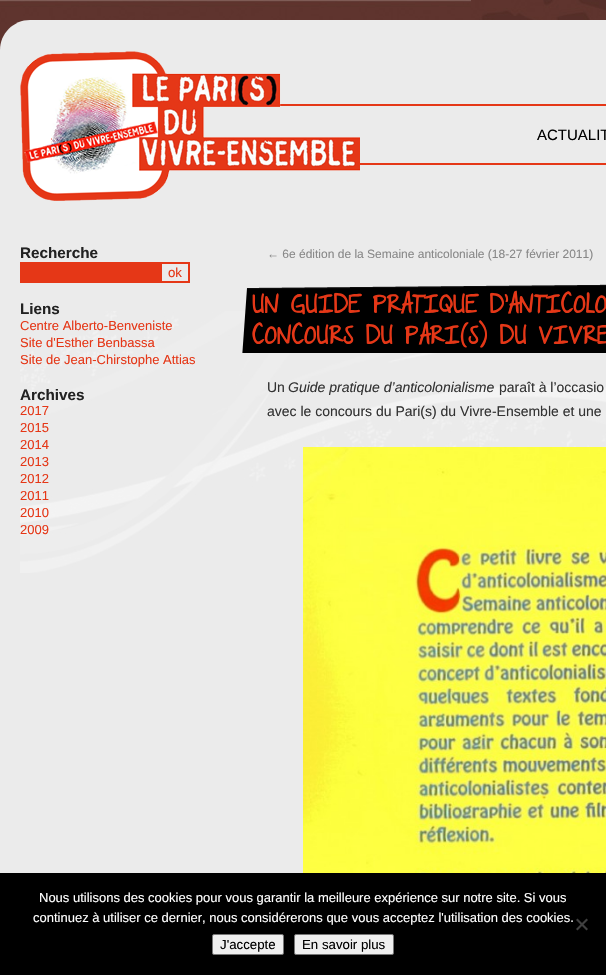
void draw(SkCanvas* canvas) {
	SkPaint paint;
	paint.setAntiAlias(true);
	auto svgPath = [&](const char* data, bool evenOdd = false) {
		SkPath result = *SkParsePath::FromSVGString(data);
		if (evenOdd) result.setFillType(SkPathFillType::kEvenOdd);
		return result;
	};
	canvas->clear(0xffffffff);
	canvas->drawImageRect(SkImages::DeferredFromEncodedData(SkData::MakeFromFileName("img1.png")), SkRect::MakeXYWH(0, 0, 606, 50), SkSamplingOptions());
	paint.setColor(0xffebebeb);
	canvas->drawPath(svgPath("M30 20H606C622.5 20 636 33.5 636 50V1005H0V50C0 33.5 13.5 20 30 20Z"), paint);
	paint.setColor(0xffe53717);
	canvas->drawRect(SkRect::MakeXYWH(280, 104, 326, 2), paint);
	canvas->drawImageRect(SkImages::DeferredFromEncodedData(SkData::MakeFromFileName("img2.png")), SkRect::MakeXYWH(20, 51, 340, 150), SkSamplingOptions());
	canvas->drawRect(SkRect::MakeXYWH(360, 163, 246, 2), paint);
	SkFont f1(fontMgr->matchFamilyStyle("Liberation Sans", SkFontStyle::Normal()), 15);
	f1.setSubpixel(true);
	paint.setColor(0xff000000);
	canvas->drawString("ACTUALIT", 537, 140, f1, paint);
	canvas->drawImageRect(SkImages::DeferredFromEncodedData(SkData::MakeFromFileName("img3.png")), SkRect::MakeXYWH(20, 311, 586, 262), SkSamplingOptions());
	SkFont f2(fontMgr->matchFamilyStyle("Liberation Sans", SkFontStyle::Bold()), 15.25);
	f2.setSubpixel(true);
	paint.setColor(0xff222222);
	canvas->drawString("Recherche", 20, 258, f2, paint);
	paint.setColor(0xffe53717);
	canvas->drawRect(SkRect::MakeXYWH(20, 262, 140, 21), paint);
	paint.setStroke(true);
	paint.setStrokeWidth(2);
	canvas->drawRect(SkRect::MakeXYWH(161, 263, 28, 19), paint);
	SkFont f3(fontMgr->matchFamilyStyle("Liberation Sans", SkFontStyle::Normal()), 13.25);
	f3.setSubpixel(true);
	paint.setStroke(false);
	canvas->drawString("ok", 168, 277, f3, paint);
	paint.setColor(0xff222222);
	canvas->drawString("Liens", 20, 314, f2, paint);
	SkFont f4(fontMgr->matchFamilyStyle("Liberation Sans", SkFontStyle::Normal()), 13);
	f4.setSubpixel(true);
	paint.setColor(0xffe53717);
	canvas->drawString("Centre Alberto-Benveniste", 20, 330, f4, paint);
	canvas->drawString("Site d'Esther Benbassa", 20, 347, f4, paint);
	canvas->drawString("Site de Jean-Chirstophe Attias", 20, 364, f4, paint);
	paint.setColor(0xff222222);
	canvas->drawString("Archives", 20, 400, f2, paint);
	paint.setColor(0xffe53717);
	canvas->drawString("2017", 20, 415, f4, paint);
	canvas->drawString("2015", 20, 432, f4, paint);
	canvas->drawString("2014", 20, 449, f4, paint);
	canvas->drawString("2013", 20, 466, f4, paint);
	canvas->drawString("2012", 20, 483, f4, paint);
	canvas->drawString("2011", 20, 500, f4, paint);
	canvas->drawString("2010", 20, 517, f4, paint);
	canvas->drawString("2009", 20, 534, f4, paint);
	SkFont f5(fontMgr->matchFamilyStyle("Liberation Sans", SkFontStyle::Normal()), 12);
	f5.setSubpixel(true);
	paint.setColor(0xff888888);
	canvas->drawString("← 6e édition de la Semaine anticoloniale (18-27 février 2011)", 267, 258, f5, paint);
	canvas->drawImageRect(SkImages::DeferredFromEncodedData(SkData::MakeFromFileName("img4.png")), SkRect::MakeXYWH(242, 284, 364, 69), SkSamplingOptions());
	SkFont f6(fontMgr->matchFamilyStyle("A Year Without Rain", SkFontStyle::Bold()), 23.75);
	f6.setSubpixel(true);
	paint.setColor(0xffe53717);
	canvas->drawString("UN GUIDE PRATIQUE D’ANTICOLO", 252, 313, f6, paint);
	canvas->drawString("CONCOURS DU PARI(S) DU VIVRE", 252, 344, f6, paint);
	SkFont f7(fontMgr->matchFamilyStyle("Liberation Sans", SkFontStyle::Normal()), 14);
	f7.setSubpixel(true);
	paint.setColor(0xff333333);
	canvas->drawString("Un", 267, 392, f7, paint);
	SkFont f8(fontMgr->matchFamilyStyle("Liberation Sans", SkFontStyle::Italic()), 14);
	f8.setSubpixel(true);
	canvas->drawString("Guide pratique d’anticolonialisme", 288, 392, f8, paint);
	canvas->drawString("paraît à l’occasio", 499, 392, f7, paint);
	canvas->drawString("avec le concours du Pari(s) du Vivre-Ensemble et une", 267, 416, f7, paint);
	canvas->drawImageRect(SkImages::DeferredFromEncodedData(SkData::MakeFromFileName("img5.png")), SkRect::MakeXYWH(303, 447, 303, 426), SkSamplingOptions());
	paint.setColor(0xff000000);
	canvas->drawRect(SkRect::MakeXYWH(0, 873, 606, 102), paint);
	paint.setColor(0xffffffff);
	canvas->drawString("Nous utilisons des cookies pour vous garantir la meilleure expérience sur notre site. Si vous", 39, 902, f4, paint);
	canvas->drawString("continuez à utiliser ce dernier, nous considérerons que vous acceptez l'utilisation des cookies.", 33, 922, f4, paint);
	paint.setColor(0xff404040);
	canvas->drawPath(svgPath("M586.5 918.5L588 920L577.5 930.5L576 929Z"), paint);
	canvas->drawPath(svgPath("M576 920L577.5 918.5L588 929L586.5 930.5Z"), paint);
	paint.setColor(0xffefefef);
	canvas->drawRoundRect(SkRect::MakeXYWH(212.5, 934.5, 71, 20), 1.5, 1.5, paint);
	paint.setStroke(true);
	paint.setStrokeWidth(1);
	paint.setColor(0xff767676);
	canvas->drawRoundRect(SkRect::MakeXYWH(212.5, 934.5, 71, 20), 1.5, 1.5, paint);
	paint.setStroke(false);
	paint.setColor(0xff000000);
	canvas->drawString("J'accepte", 220, 949, f3, paint);
	paint.setColor(0xffefefef);
	canvas->drawRoundRect(SkRect::MakeXYWH(294.5, 934.5, 99, 20), 1.5, 1.5, paint);
	paint.setStroke(true);
	paint.setColor(0xff767676);
	canvas->drawRoundRect(SkRect::MakeXYWH(294.5, 934.5, 99, 20), 1.5, 1.5, paint);
	paint.setStroke(false);
	paint.setColor(0xff000000);
	canvas->drawString("En savoir plus", 302, 949, f3, paint);
}
